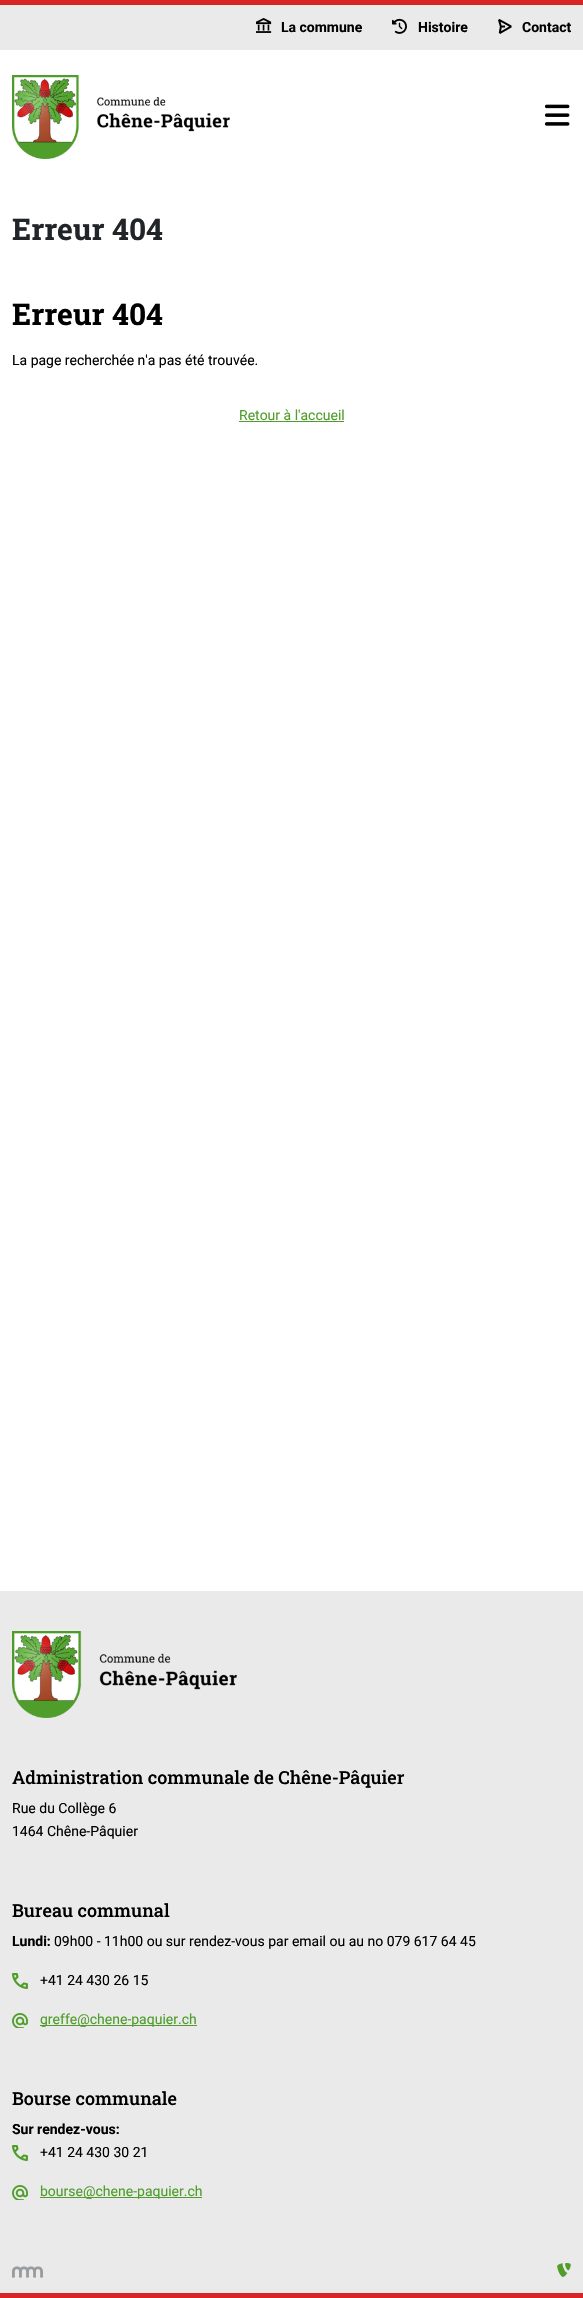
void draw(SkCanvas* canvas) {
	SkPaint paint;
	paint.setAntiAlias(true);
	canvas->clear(0xffffffff);
	paint.setColor(0xffeaeaea);
	canvas->drawRect(SkRect::MakeXYWH(0, 5, 583, 45), paint);
	paint.setColor(0xffd72525);
	canvas->drawRect(SkRect::MakeXYWH(0, 0, 583, 5), paint);
	canvas->drawImageRect(SkImages::DeferredFromEncodedData(SkData::MakeFromFileName("img1.png")), SkRect::MakeXYWH(256, 18, 16, 15), SkSamplingOptions());
	SkFont f1(fontMgr->matchFamilyStyle("Roboto", SkFontStyle::Bold()), 14);
	f1.setSubpixel(true);
	paint.setColor(0xff000000);
	canvas->drawString("La commune", 281, 32, f1, paint);
	canvas->drawImageRect(SkImages::DeferredFromEncodedData(SkData::MakeFromFileName("img2.png")), SkRect::MakeXYWH(392, 18, 15, 16), SkSamplingOptions());
	canvas->drawString("Histoire", 418, 32, f1, paint);
	canvas->drawImageRect(SkImages::DeferredFromEncodedData(SkData::MakeFromFileName("img3.png")), SkRect::MakeXYWH(498, 19, 14, 15), SkSamplingOptions());
	canvas->drawString("Contact", 522, 32, f1, paint);
	canvas->drawImageRect(SkImages::DeferredFromEncodedData(SkData::MakeFromFileName("img4.png")), SkRect::MakeXYWH(12, 75, 218, 84), SkSamplingOptions());
	canvas->drawImageRect(SkImages::DeferredFromEncodedData(SkData::MakeFromFileName("img5.png")), SkRect::MakeXYWH(544, 104, 26, 22), SkSamplingOptions());
	SkFont f2(fontMgr->matchFamilyStyle("Roboto Slab", SkFontStyle::Bold()), 30);
	f2.setSubpixel(true);
	paint.setColor(0xff212529);
	canvas->drawString("Erreur 404", 12, 240, f2, paint);
	paint.setColor(0xff000000);
	canvas->drawString("Erreur 404", 12, 325, f2, paint);
	SkFont f3(fontMgr->matchFamilyStyle("Roboto", SkFontStyle::Normal()), 14);
	f3.setSubpixel(true);
	canvas->drawString("La page recherchée n'a pas été trouvée.", 12, 365, f3, paint);
	paint.setColor(0xff4f9d2b);
	canvas->drawString("Retour à l'accueil", 239, 420, f3, paint);
	canvas->drawRect(SkRect::MakeXYWH(239, 421, 105, 1), paint);
	paint.setColor(0xffeaeaea);
	canvas->drawRect(SkRect::MakeXYWH(0, 1591, 583, 702), paint);
	paint.setColor(0xffd72525);
	canvas->drawRect(SkRect::MakeXYWH(0, 2293, 583, 5), paint);
	canvas->drawImageRect(SkImages::DeferredFromEncodedData(SkData::MakeFromFileName("img6.png")), SkRect::MakeXYWH(12, 1631, 225, 87), SkSamplingOptions());
	SkFont f4(fontMgr->matchFamilyStyle("Roboto Slab", SkFontStyle(500, SkFontStyle::kNormal_Width, SkFontStyle::kUpright_Slant)), 18);
	f4.setSubpixel(true);
	paint.setColor(0xff000000);
	canvas->drawString("Administration communale de Chêne-Pâquier", 12, 1784, f4, paint);
	canvas->drawString("Rue du Collège 6", 12, 1813, f3, paint);
	canvas->drawString("1464 Chêne-Pâquier", 12, 1836, f3, paint);
	canvas->drawString("Bureau communal", 12, 1917, f4, paint);
	canvas->drawString("Lundi:", 12, 1946, f1, paint);
	canvas->drawString("09h00 - 11h00 ou sur rendez-vous par email ou au no 079 617 64 45", 54, 1946, f3, paint);
	canvas->drawImageRect(SkImages::DeferredFromEncodedData(SkData::MakeFromFileName("img7.png")), SkRect::MakeXYWH(12, 1973, 16, 16), SkSamplingOptions());
	canvas->drawString("+41 24 430 26 15", 40, 1985, f3, paint);
	canvas->drawImageRect(SkImages::DeferredFromEncodedData(SkData::MakeFromFileName("img8.png")), SkRect::MakeXYWH(12, 2013, 16, 15), SkSamplingOptions());
	paint.setColor(0xff4f9d2b);
	canvas->drawRect(SkRect::MakeXYWH(40, 2025, 157, 1), paint);
	canvas->drawString("greffe@chene-paquier.ch", 40, 2024, f3, paint);
	paint.setColor(0xff000000);
	canvas->drawString("Bourse communale", 12, 2105, f4, paint);
	canvas->drawString("Sur rendez-vous:", 12, 2134, f1, paint);
	canvas->drawImageRect(SkImages::DeferredFromEncodedData(SkData::MakeFromFileName("img7.png")), SkRect::MakeXYWH(12, 2145, 16, 16), SkSamplingOptions());
	canvas->drawString("+41 24 430 30 21", 40, 2157, f3, paint);
	canvas->drawImageRect(SkImages::DeferredFromEncodedData(SkData::MakeFromFileName("img8.png")), SkRect::MakeXYWH(12, 2185, 16, 15), SkSamplingOptions());
	paint.setColor(0xff4f9d2b);
	canvas->drawRect(SkRect::MakeXYWH(40, 2197, 162, 1), paint);
	canvas->drawString("bourse@chene-paquier.ch", 40, 2196, f3, paint);
	canvas->drawImageRect(SkImages::DeferredFromEncodedData(SkData::MakeFromFileName("img9.png")), SkRect::MakeXYWH(12, 2266, 31, 12), SkSamplingOptions());
	canvas->drawImageRect(SkImages::DeferredFromEncodedData(SkData::MakeFromFileName("img10.png")), SkRect::MakeXYWH(557, 2263, 14, 14), SkSamplingOptions());
}
